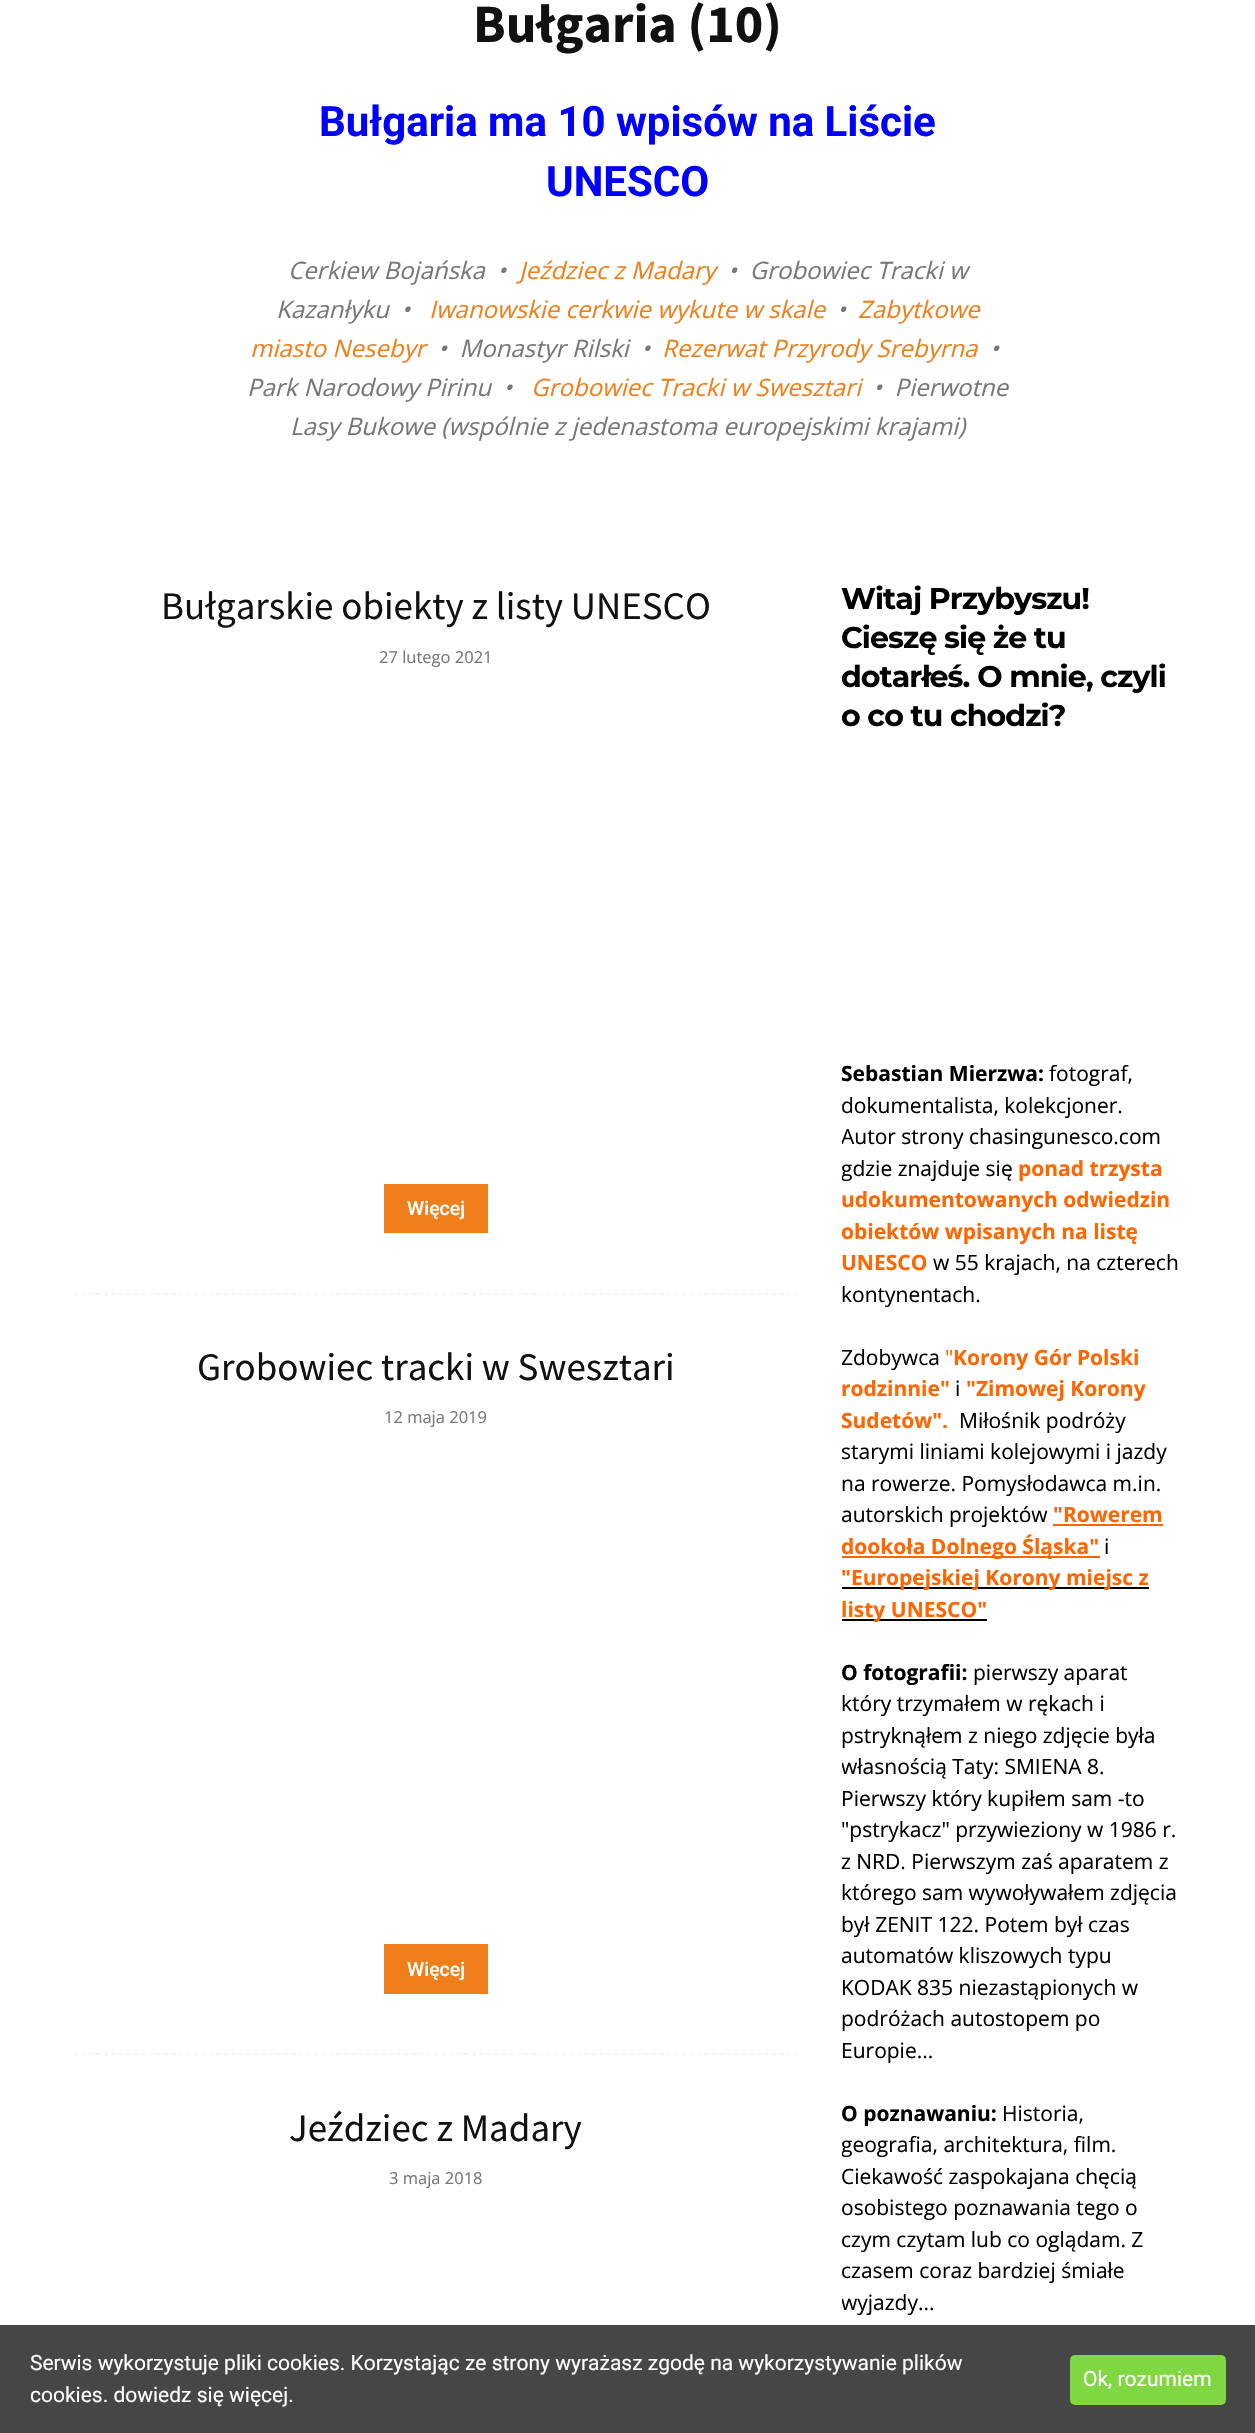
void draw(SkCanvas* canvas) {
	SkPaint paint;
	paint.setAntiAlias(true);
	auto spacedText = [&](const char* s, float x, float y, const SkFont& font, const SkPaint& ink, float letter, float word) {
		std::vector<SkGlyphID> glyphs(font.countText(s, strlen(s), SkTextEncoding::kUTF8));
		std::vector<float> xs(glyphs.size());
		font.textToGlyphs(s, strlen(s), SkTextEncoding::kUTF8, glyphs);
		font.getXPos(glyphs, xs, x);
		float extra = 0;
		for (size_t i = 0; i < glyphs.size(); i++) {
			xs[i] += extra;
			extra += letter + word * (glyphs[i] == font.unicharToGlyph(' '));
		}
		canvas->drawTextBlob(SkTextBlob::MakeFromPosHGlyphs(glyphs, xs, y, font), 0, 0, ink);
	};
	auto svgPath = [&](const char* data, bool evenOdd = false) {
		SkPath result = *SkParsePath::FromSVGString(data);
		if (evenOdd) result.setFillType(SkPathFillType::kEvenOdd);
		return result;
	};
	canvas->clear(0xffffffff);
	SkFont f1(fontMgr->matchFamilyStyle("Source Sans Pro", SkFontStyle::Bold()), 54);
	f1.setSubpixel(true);
	paint.setColor(0xff111111);
	canvas->drawString("Bułgaria (10)", 473, 42, f1, paint);
	SkFont f2(fontMgr->matchFamilyStyle("Roboto", SkFontStyle::Bold()), 42);
	f2.setSubpixel(true);
	paint.setColor(0xff0000ff);
	canvas->drawString("Bułgaria ma 10 wpisów na Liście", 319, 136, f2, paint);
	canvas->drawString("UNESCO", 546, 196, f2, paint);
	SkFont f3(fontMgr->matchFamilyStyle("Open Sans", SkFontStyle::Italic()), 24);
	f3.setSubpixel(true);
	paint.setColor(0xff777777);
	canvas->drawString("Cerkiew Bojańska  •", 288, 279, f3, paint);
	paint.setColor(0xffef7f1b);
	canvas->drawString("Jeździec z Madary", 519, 279, f3, paint);
	paint.setColor(0xff777777);
	canvas->drawString("•  Grobowiec Tracki w", 728, 279, f3, paint);
	canvas->drawString("Kazanłyku  •", 276, 318, f3, paint);
	paint.setColor(0xffef7f1b);
	canvas->drawString("Iwanowskie cerkwie wykute w skale", 429, 318, f3, paint);
	paint.setColor(0xff777777);
	canvas->drawString("•", 837, 318, f3, paint);
	paint.setColor(0xffef7f1b);
	canvas->drawString("Zabytkowe", 858, 318, f3, paint);
	canvas->drawString("miasto Nesebyr", 250, 357, f3, paint);
	paint.setColor(0xff777777);
	canvas->drawString("•  Monastyr Rilski  •", 438, 357, f3, paint);
	paint.setColor(0xffef7f1b);
	canvas->drawString("Rezerwat Przyrody Srebyrna", 662, 357, f3, paint);
	paint.setColor(0xff777777);
	canvas->drawString("•", 990, 357, f3, paint);
	canvas->drawString("Park Narodowy Pirinu  •", 247, 396, f3, paint);
	paint.setColor(0xffef7f1b);
	canvas->drawString("Grobowiec Tracki w Swesztari", 531, 396, f3, paint);
	paint.setColor(0xff777777);
	canvas->drawString("•  Pierwotne", 873, 396, f3, paint);
	canvas->drawString("Lasy Bukowe (wspólnie z jedenastoma europejskimi krajami)", 290, 435, f3, paint);
	paint.setStroke(true);
	paint.setStrokeWidth(1.5);
	paint.setColor(0xfff2f2f2);
	paint.setPathEffect(SkDashPathEffect::Make({{4.5f, 3.01f}}, 0));
	canvas->drawPath(svgPath("M73.5 1294H799.5"), paint);
	paint.setPathEffect(nullptr);
	SkFont f4(fontMgr->matchFamilyStyle("Source Sans Pro", SkFontStyle::Normal()), 39);
	f4.setSubpixel(true);
	paint.setStroke(false);
	paint.setColor(0xff111111);
	canvas->drawString("Bułgarskie obiekty z listy UNESCO", 161, 619, f4, paint);
	SkFont f5(fontMgr->matchFamilyStyle("Open Sans", SkFontStyle::Normal()), 16.5);
	f5.setSubpixel(true);
	paint.setColor(0xff777777);
	canvas->drawString("27 lutego 2021", 379, 663, f5, paint);
	paint.setColor(0xffef7f1b);
	canvas->drawRect(SkRect::MakeXYWH(384, 1184, 104, 49), paint);
	SkFont f6(fontMgr->matchFamilyStyle("Roboto", SkFontStyle(500, SkFontStyle::kNormal_Width, SkFontStyle::kUpright_Slant)), 19.5);
	f6.setSubpixel(true);
	paint.setColor(0xffffffff);
	canvas->drawString("Więcej", 407, 1215, f6, paint);
	paint.setStroke(true);
	paint.setColor(0xfff2f2f2);
	paint.setPathEffect(SkDashPathEffect::Make({{4.5f, 3.01f}}, 0));
	canvas->drawPath(svgPath("M73.5 2054H799.5"), paint);
	paint.setPathEffect(nullptr);
	paint.setStroke(false);
	paint.setColor(0xff111111);
	canvas->drawString("Grobowiec tracki w Swesztari", 197, 1380, f4, paint);
	paint.setColor(0xff777777);
	canvas->drawString("12 maja 2019", 384, 1423, f5, paint);
	paint.setColor(0xffef7f1b);
	canvas->drawRect(SkRect::MakeXYWH(384, 1944, 104, 50), paint);
	paint.setColor(0xffffffff);
	canvas->drawString("Więcej", 407, 1976, f6, paint);
	paint.setColor(0xff111111);
	canvas->drawString("Jeździec z Madary", 289, 2141, f4, paint);
	paint.setColor(0xff777777);
	canvas->drawString("3 maja 2018", 389, 2184, f5, paint);
	SkFont f7(fontMgr->matchFamilyStyle("Montserrat", SkFontStyle::Bold()), 30);
	f7.setSubpixel(true);
	paint.setColor(0xff000000);
	spacedText("Witaj Przybyszu!", 841, 609, f7, paint, -0.9, 0);
	spacedText("Cieszę się że tu", 841, 648, f7, paint, -0.9, 0);
	spacedText("dotarłeś. O mnie, czyli", 841, 687, f7, paint, -0.9, 0);
	canvas->save();
	canvas->clipRect(SkRect::MakeXYWH(842, 579, 342, 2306));
	spacedText("o co tu chodzi?", 841, 726, f7, paint, -0.9, 0);
	SkFont f8(fontMgr->matchFamilyStyle("Open Sans", SkFontStyle::Bold()), 21);
	f8.setSubpixel(true);
	canvas->drawString("Sebastian Mierzwa:", 841, 1081, f8, paint);
	canvas->restore();
	SkFont f9(fontMgr->matchFamilyStyle("Open Sans", SkFontStyle::Normal()), 21);
	f9.setSubpixel(true);
	canvas->drawString("fotograf,", 1049, 1081, f9, paint);
	canvas->drawString("dokumentalista, kolekcjoner.", 841, 1113, f9, paint);
	canvas->save();
	canvas->clipRect(SkRect::MakeXYWH(842, 579, 342, 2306));
	canvas->drawString("Autor strony chasingunesco.com", 841, 1144, f9, paint);
	canvas->drawString("gdzie znajduje się", 841, 1176, f9, paint);
	canvas->restore();
	paint.setColor(0xffff6600);
	canvas->drawString("ponad trzysta", 1018, 1176, f8, paint);
	canvas->drawString("udokumentowanych odwiedzin", 841, 1207, f8, paint);
	canvas->save();
	canvas->clipRect(SkRect::MakeXYWH(842, 579, 342, 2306));
	canvas->drawString("obiektów wpisanych na listę", 841, 1239, f8, paint);
	canvas->restore();
	canvas->drawString("UNESCO", 841, 1270, f8, paint);
	paint.setColor(0xff000000);
	canvas->drawString("w 55 krajach, na czterech", 933, 1270, f9, paint);
	canvas->drawString("kontynentach.", 841, 1302, f9, paint);
	canvas->save();
	canvas->clipRect(SkRect::MakeXYWH(842, 579, 342, 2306));
	canvas->drawString("Zdobywca", 841, 1365, f9, paint);
	canvas->restore();
	paint.setColor(0xffff6600);
	canvas->drawString("\"", 945, 1365, f9, paint);
	canvas->drawString("Korony Gór Polski", 953, 1365, f8, paint);
	canvas->drawString("rodzinnie\"", 841, 1396, f8, paint);
	paint.setColor(0xff000000);
	canvas->drawString("i", 955, 1396, f9, paint);
	paint.setColor(0xffff6600);
	canvas->drawString("\"Zimowej Korony", 966, 1396, f8, paint);
	canvas->save();
	canvas->clipRect(SkRect::MakeXYWH(842, 579, 342, 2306));
	canvas->drawString("Sudetów\".", 841, 1428, f8, paint);
	canvas->restore();
	paint.setColor(0xff000000);
	canvas->drawString("Miłośnik podróży", 959, 1428, f9, paint);
	canvas->save();
	canvas->clipRect(SkRect::MakeXYWH(842, 579, 342, 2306));
	canvas->drawString("starymi liniami kolejowymi i jazdy", 841, 1459, f9, paint);
	canvas->restore();
	canvas->drawString("na rowerze. Pomysłodawca m.in.", 841, 1491, f9, paint);
	canvas->drawString("autorskich projektów", 841, 1522, f9, paint);
	paint.setColor(0xffff6600);
	canvas->drawString("\"Rowerem", 1053, 1522, f8, paint);
	canvas->drawRect(SkRect::MakeXYWH(1053, 1524, 110, 2), paint);
	canvas->drawRect(SkRect::MakeXYWH(842, 1556, 258, 2), paint);
	canvas->save();
	canvas->clipRect(SkRect::MakeXYWH(842, 579, 342, 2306));
	canvas->drawString("dookoła Dolnego Śląska\"", 841, 1554, f8, paint);
	canvas->restore();
	paint.setColor(0xff000000);
	canvas->drawString("i", 1104, 1554, f9, paint);
	canvas->drawRect(SkRect::MakeXYWH(842, 1587, 307, 2), paint);
	paint.setColor(0xffff6600);
	canvas->drawString("\"Europejskiej Korony miejsc z", 841, 1585, f8, paint);
	paint.setColor(0xff000000);
	canvas->drawRect(SkRect::MakeXYWH(842, 1619, 145, 2), paint);
	paint.setColor(0xffff6600);
	canvas->drawString("listy UNESCO\"", 841, 1617, f8, paint);
	paint.setColor(0xff000000);
	canvas->drawString("O fotografii:", 841, 1680, f8, paint);
	canvas->drawString("pierwszy aparat", 973, 1680, f9, paint);
	canvas->drawString("który trzymałem w rękach i", 841, 1711, f9, paint);
	canvas->drawString("pstryknąłem z niego zdjęcie była", 841, 1743, f9, paint);
	canvas->save();
	canvas->clipRect(SkRect::MakeXYWH(842, 579, 342, 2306));
	canvas->drawString("własnością Taty: SMIENA 8.", 841, 1774, f9, paint);
	canvas->restore();
	canvas->drawString("Pierwszy który kupiłem sam -to", 841, 1806, f9, paint);
	canvas->drawString("\"pstrykacz\" przywieziony w 1986 r.", 841, 1837, f9, paint);
	canvas->drawString("z NRD. Pierwszym zaś aparatem z", 841, 1869, f9, paint);
	canvas->drawString("którego sam wywoływałem zdjęcia", 841, 1900, f9, paint);
	canvas->drawString("był ZENIT 122. Potem był czas", 841, 1932, f9, paint);
	canvas->drawString("automatów kliszowych typu", 841, 1963, f9, paint);
	canvas->drawString("KODAK 835 niezastąpionych w", 841, 1995, f9, paint);
	canvas->drawString("podróżach autostopem po", 841, 2026, f9, paint);
	canvas->drawString("Europie...", 841, 2058, f9, paint);
	canvas->drawString("O poznawaniu:", 841, 2121, f8, paint);
	canvas->drawString("Historia,", 1002, 2121, f9, paint);
	canvas->save();
	canvas->clipRect(SkRect::MakeXYWH(842, 579, 342, 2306));
	canvas->drawString("geografia, architektura, film.", 841, 2152, f9, paint);
	canvas->restore();
	canvas->drawString("Ciekawość zaspokajana chęcią", 841, 2184, f9, paint);
	canvas->drawString("osobistego poznawania tego o", 841, 2215, f9, paint);
	canvas->drawString("czym czytam lub co oglądam. Z", 841, 2247, f9, paint);
	canvas->drawString("czasem coraz bardziej śmiałe", 841, 2278, f9, paint);
	canvas->save();
	canvas->clipRect(SkRect::MakeXYWH(842, 579, 342, 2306));
	canvas->drawString("wyjazdy...", 841, 2310, f9, paint);
	canvas->restore();
	paint.setColor(0xff464646);
	canvas->drawRect(SkRect::MakeXYWH(0, 2325, 1255, 108), paint);
	SkFont f10(fontMgr->matchFamilyStyle("Roboto", SkFontStyle::Normal()), 21);
	f10.setSubpixel(true);
	paint.setColor(0xffffffff);
	canvas->drawString("Serwis wykorzystuje pliki cookies. Korzystając ze strony wyrażasz zgodę na wykorzystywanie plików", 30, 2370, f10, paint);
	canvas->drawString("cookies. dowiedz się więcej.", 30, 2402, f10, paint);
	paint.setColor(0xff81d742);
	canvas->drawRoundRect(SkRect::MakeXYWH(1070, 2355, 156, 50), 5, 5, paint);
	paint.setColor(0xffffffff);
	canvas->drawString("Ok, rozumiem", 1083, 2386, f10, paint);
}
